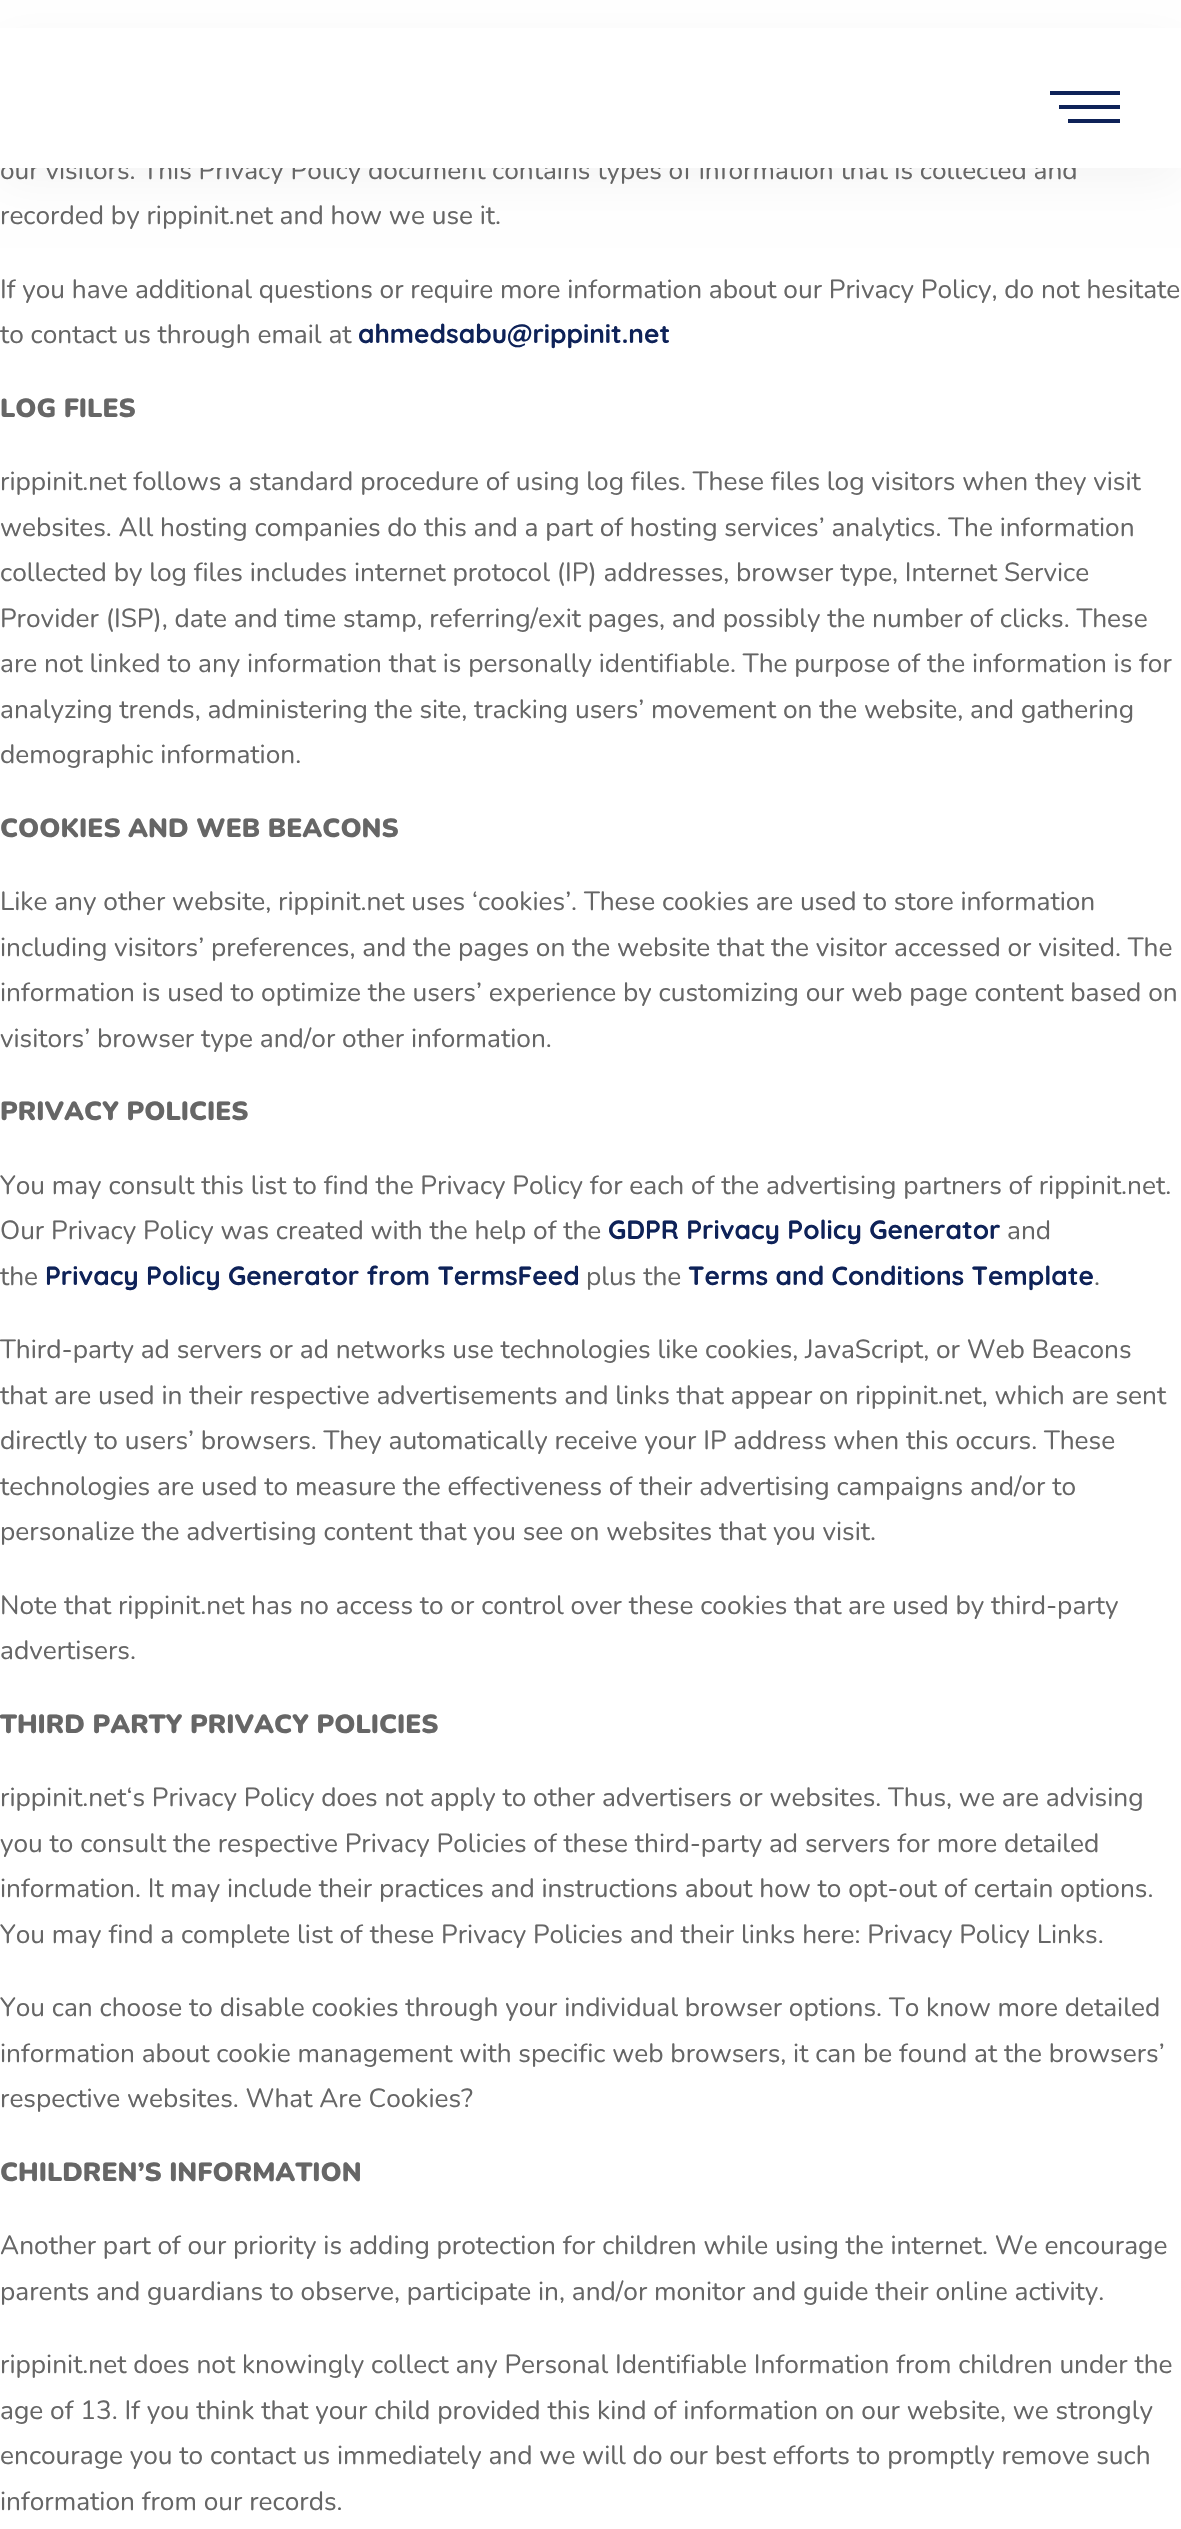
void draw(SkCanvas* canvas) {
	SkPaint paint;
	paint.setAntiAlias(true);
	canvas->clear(0xffffffff);
	paint.setColor(0x0a000000);
	paint.setMaskFilter(SkMaskFilter::MakeBlur(kNormal_SkBlurStyle, 22));
	canvas->drawRect(SkRect::MakeXYWH(0, 42, 1181, 140), paint);
	paint.setMaskFilter(nullptr);
	SkFont f1(fontMgr->matchFamilyStyle("Nunito", SkFontStyle::Normal()), 26.25);
	f1.setSubpixel(true);
	paint.setColor(0xff666666);
	canvas->drawString("our visitors. This Privacy Policy document contains types of information that is collected and", 0, 179, f1, paint);
	paint.setColor(0xffffffff);
	canvas->drawRect(SkRect::MakeXYWH(0, 28, 1181, 140), paint);
	paint.setColor(0xff0e2258);
	canvas->drawRect(SkRect::MakeXYWH(1050, 91, 70, 4), paint);
	canvas->drawRect(SkRect::MakeXYWH(1059, 105, 61, 4), paint);
	canvas->drawRect(SkRect::MakeXYWH(1068, 119, 52, 4), paint);
	paint.setColor(0xff666666);
	canvas->drawString("recorded by rippinit.net and how we use it.", 0, 224, f1, paint);
	canvas->drawString("If you have additional questions or require more information about our Privacy Policy, do not hesitate", 0, 298, f1, paint);
	canvas->drawString("to contact us through email at", 0, 343, f1, paint);
	SkFont f2(fontMgr->matchFamilyStyle("Quicksand", SkFontStyle::Bold()), 26.25);
	f2.setSubpixel(true);
	paint.setColor(0xff0e2258);
	canvas->drawString("ahmedsabu@rippinit.net", 358, 343, f2, paint);
	SkFont f3(fontMgr->matchFamilyStyle("Nunito", SkFontStyle(900, SkFontStyle::kNormal_Width, SkFontStyle::kUpright_Slant)), 26.25);
	f3.setSubpixel(true);
	paint.setColor(0xff666666);
	canvas->drawString("LOG FILES", 0, 417, f3, paint);
	canvas->drawString("rippinit.net follows a standard procedure of using log files. These files log visitors when they visit", 0, 490, f1, paint);
	canvas->drawString("websites. All hosting companies do this and a part of hosting services’ analytics. The information", 0, 536, f1, paint);
	canvas->drawString("collected by log files includes internet protocol (IP) addresses, browser type, Internet Service", 0, 581, f1, paint);
	canvas->drawString("Provider (ISP), date and time stamp, referring/exit pages, and possibly the number of clicks. These", 0, 627, f1, paint);
	canvas->drawString("are not linked to any information that is personally identifiable. The purpose of the information is for", 0, 672, f1, paint);
	canvas->drawString("analyzing trends, administering the site, tracking users’ movement on the website, and gathering", 0, 718, f1, paint);
	canvas->drawString("demographic information.", 0, 763, f1, paint);
	canvas->drawString("COOKIES AND WEB BEACONS", 0, 837, f3, paint);
	canvas->drawString("Like any other website, rippinit.net uses ‘cookies’. These cookies are used to store information", 0, 910, f1, paint);
	canvas->drawString("including visitors’ preferences, and the pages on the website that the visitor accessed or visited. The", 0, 956, f1, paint);
	canvas->drawString("information is used to optimize the users’ experience by customizing our web page content based on", 0, 1001, f1, paint);
	canvas->drawString("visitors’ browser type and/or other information.", 0, 1047, f1, paint);
	canvas->drawString("PRIVACY POLICIES", 0, 1120, f3, paint);
	canvas->drawString("You may consult this list to find the Privacy Policy for each of the advertising partners of rippinit.net.", 0, 1194, f1, paint);
	canvas->drawString("Our Privacy Policy was created with the help of the", 0, 1239, f1, paint);
	paint.setColor(0xff0e2258);
	canvas->drawString("GDPR Privacy Policy Generator", 608, 1239, f2, paint);
	paint.setColor(0xff666666);
	canvas->drawString("and", 1007, 1239, f1, paint);
	canvas->drawString("the", 0, 1285, f1, paint);
	paint.setColor(0xff0e2258);
	canvas->drawString("Privacy Policy Generator from TermsFeed", 45, 1285, f2, paint);
	paint.setColor(0xff666666);
	canvas->drawString("plus the", 586, 1285, f1, paint);
	paint.setColor(0xff0e2258);
	canvas->drawString("Terms and Conditions Template", 688, 1285, f2, paint);
	paint.setColor(0xff666666);
	canvas->drawString(".", 1094, 1285, f1, paint);
	canvas->drawString("Third-party ad servers or ad networks use technologies like cookies, JavaScript, or Web Beacons", 0, 1358, f1, paint);
	canvas->drawString("that are used in their respective advertisements and links that appear on rippinit.net, which are sent", 0, 1404, f1, paint);
	canvas->drawString("directly to users’ browsers. They automatically receive your IP address when this occurs. These", 0, 1449, f1, paint);
	canvas->drawString("technologies are used to measure the effectiveness of their advertising campaigns and/or to", 0, 1495, f1, paint);
	canvas->drawString("personalize the advertising content that you see on websites that you visit.", 0, 1540, f1, paint);
	canvas->drawString("Note that rippinit.net has no access to or control over these cookies that are used by third-party", 0, 1614, f1, paint);
	canvas->drawString("advertisers.", 0, 1659, f1, paint);
	canvas->drawString("THIRD PARTY PRIVACY POLICIES", 0, 1733, f3, paint);
	canvas->drawString("rippinit.net‘s Privacy Policy does not apply to other advertisers or websites. Thus, we are advising", 0, 1806, f1, paint);
	canvas->drawString("you to consult the respective Privacy Policies of these third-party ad servers for more detailed", 0, 1852, f1, paint);
	canvas->drawString("information. It may include their practices and instructions about how to opt-out of certain options.", 0, 1897, f1, paint);
	canvas->drawString("You may find a complete list of these Privacy Policies and their links here: Privacy Policy Links.", 0, 1943, f1, paint);
	canvas->drawString("You can choose to disable cookies through your individual browser options. To know more detailed", 0, 2016, f1, paint);
	canvas->drawString("information about cookie management with specific web browsers, it can be found at the browsers’", 0, 2062, f1, paint);
	canvas->drawString("respective websites. What Are Cookies?", 0, 2107, f1, paint);
	canvas->drawString("CHILDREN’S INFORMATION", 0, 2181, f3, paint);
	canvas->drawString("Another part of our priority is adding protection for children while using the internet. We encourage", 0, 2254, f1, paint);
	canvas->drawString("parents and guardians to observe, participate in, and/or monitor and guide their online activity.", 0, 2300, f1, paint);
	canvas->drawString("rippinit.net does not knowingly collect any Personal Identifiable Information from children under the", 0, 2373, f1, paint);
	canvas->drawString("age of 13. If you think that your child provided this kind of information on our website, we strongly", 0, 2419, f1, paint);
	canvas->drawString("encourage you to contact us immediately and we will do our best efforts to promptly remove such", 0, 2464, f1, paint);
	canvas->drawString("information from our records.", 0, 2510, f1, paint);
}
